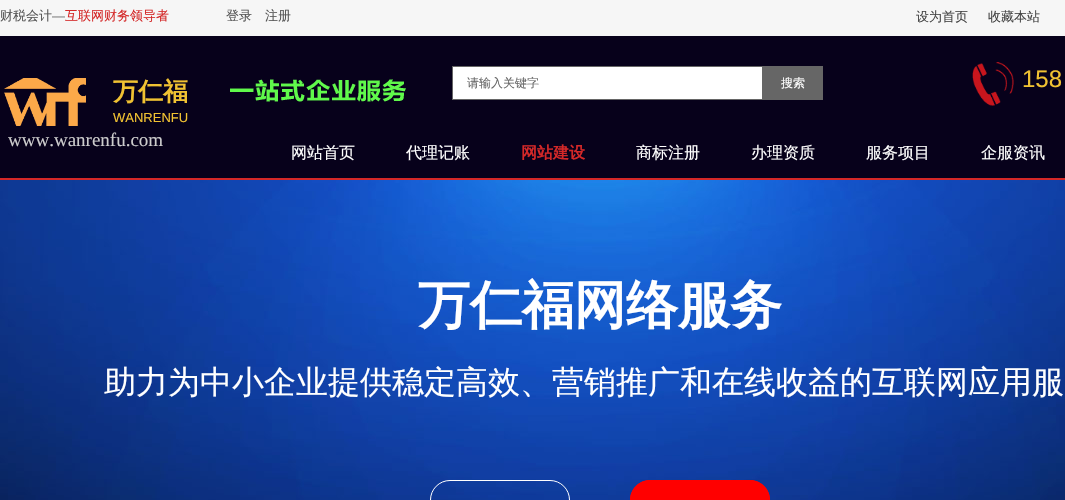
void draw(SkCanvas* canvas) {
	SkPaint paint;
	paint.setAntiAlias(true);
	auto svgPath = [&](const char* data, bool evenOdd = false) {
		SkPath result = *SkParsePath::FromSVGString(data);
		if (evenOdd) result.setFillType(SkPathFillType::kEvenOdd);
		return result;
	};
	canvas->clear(0xfff6f6f6);
	SkFont f1(fontMgr->matchFamilyStyle("WenQuanYi Zen Hei", SkFontStyle(500, SkFontStyle::kNormal_Width, SkFontStyle::kUpright_Slant)), 13);
	f1.setSubpixel(true);
	paint.setColor(0xff555555);
	canvas->drawString("财税会计", 0, 20, f1, paint);
	SkFont f2(fontMgr->matchFamilyStyle("Liberation Serif", SkFontStyle::Normal()), 13);
	f2.setSubpixel(true);
	canvas->drawString("—", 52, 20, f2, paint);
	paint.setColor(0xffd42828);
	canvas->drawString("互联网财务领导者", 65, 20, f1, paint);
	paint.setColor(0xff555555);
	canvas->drawString("登录", 226, 20, f1, paint);
	canvas->drawString("注册", 265, 20, f1, paint);
	paint.setColor(0xff434343);
	canvas->drawString("设为首页", 916, 21, f1, paint);
	canvas->drawString("收藏本站", 988, 21, f1, paint);
	paint.setColor(0xff07011b);
	canvas->drawRect(SkRect::MakeXYWH(0, 36, 1065, 142), paint);
	canvas->drawImageRect(SkImages::DeferredFromEncodedData(SkData::MakeFromFileName("img1.png")), SkRect::MakeXYWH(4, 78, 82, 48), SkSamplingOptions());
	SkFont f3(fontMgr->matchFamilyStyle("WenQuanYi Zen Hei", SkFontStyle::Bold()), 25);
	f3.setSubpixel(true);
	paint.setColor(0xfff1c232);
	canvas->drawString("万仁福", 113, 100, f3, paint);
	canvas->drawImageRect(SkImages::DeferredFromEncodedData(SkData::MakeFromFileName("img2.png")), SkRect::MakeXYWH(230, 79, 176, 23), SkSamplingOptions());
	paint.setColor(0xffffffff);
	canvas->drawRect(SkRect::MakeXYWH(452.5, 66.5, 310, 33), paint);
	paint.setStroke(true);
	paint.setStrokeWidth(1);
	paint.setColor(0xff666666);
	canvas->drawRect(SkRect::MakeXYWH(452.5, 66.5, 310, 33), paint);
	SkFont f4(fontMgr->matchFamilyStyle("WenQuanYi Zen Hei", SkFontStyle(500, SkFontStyle::kNormal_Width, SkFontStyle::kUpright_Slant)), 12);
	f4.setSubpixel(true);
	paint.setStroke(false);
	canvas->drawString("请输入关键字", 467, 87, f4, paint);
	canvas->drawRect(SkRect::MakeXYWH(763, 66, 60, 34), paint);
	paint.setColor(0xffffffff);
	canvas->drawString("搜索", 781, 87, f4, paint);
	canvas->drawImageRect(SkImages::DeferredFromEncodedData(SkData::MakeFromFileName("img3.png")), SkRect::MakeXYWH(972, 62, 42, 44), SkSamplingOptions());
	SkFont f5(fontMgr->matchFamilyStyle("Liberation Sans", SkFontStyle::Normal()), 24);
	f5.setSubpixel(true);
	paint.setColor(0xfff1c232);
	canvas->drawString("158", 1022, 87, f5, paint);
	SkFont f6(fontMgr->matchFamilyStyle("Liberation Sans", SkFontStyle::Normal()), 13);
	f6.setSubpixel(true);
	canvas->drawString("WANRENFU", 113, 122, f6, paint);
	SkFont f7(fontMgr->matchFamilyStyle("Liberation Serif", SkFontStyle::Normal()), 19);
	f7.setSubpixel(true);
	paint.setColor(0xffcccccc);
	canvas->drawString("www.wanrenfu.com", 8, 146, f7, paint);
	SkFont f8(fontMgr->matchFamilyStyle("WenQuanYi Zen Hei", SkFontStyle(500, SkFontStyle::kNormal_Width, SkFontStyle::kUpright_Slant)), 16);
	f8.setSubpixel(true);
	paint.setColor(0xffffffff);
	canvas->drawString("网站首页", 291, 158, f8, paint);
	canvas->drawString("代理记账", 406, 158, f8, paint);
	SkFont f9(fontMgr->matchFamilyStyle("WenQuanYi Zen Hei", SkFontStyle::Bold()), 16);
	f9.setSubpixel(true);
	paint.setColor(0xffd42828);
	canvas->drawString("网站建设", 521, 158, f9, paint);
	paint.setColor(0xffffffff);
	canvas->drawString("商标注册", 636, 158, f8, paint);
	canvas->drawString("办理资质", 751, 158, f8, paint);
	canvas->drawString("服务项目", 866, 158, f8, paint);
	canvas->drawString("企服资讯", 981, 158, f8, paint);
	paint.setColor(0xffd42828);
	canvas->drawRect(SkRect::MakeXYWH(0, 178, 1065, 2), paint);
	canvas->drawImageRect(SkImages::DeferredFromEncodedData(SkData::MakeFromFileName("img4.png")), SkRect::MakeXYWH(0, 180, 1065, 320), SkSamplingOptions());
	SkFont f10(fontMgr->matchFamilyStyle("WenQuanYi Zen Hei", SkFontStyle::Bold()), 52);
	f10.setSubpixel(true);
	paint.setColor(0xffffffff);
	canvas->drawString("万仁福网络服务", 418, 323, f10, paint);
	SkFont f11(fontMgr->matchFamilyStyle("WenQuanYi Zen Hei", SkFontStyle(500, SkFontStyle::kNormal_Width, SkFontStyle::kUpright_Slant)), 32);
	f11.setSubpixel(true);
	canvas->drawString("助力为中小企业提供稳定高效、营销推广和在线收益的互联网应用服", 104, 393, f11, paint);
	paint.setStroke(true);
	canvas->drawRoundRect(SkRect::MakeXYWH(430.5, 480.5, 139, 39), 19.5, 19.5, paint);
	paint.setStroke(false);
	paint.setColor(0xffff0000);
	canvas->drawPath(svgPath("M650 480H750C761 480 770 489 770 500H630C630 489 639 480 650 480Z"), paint);
	paint.setStroke(true);
	canvas->drawRoundRect(SkRect::MakeXYWH(630.5, 480.5, 139, 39), 19.5, 19.5, paint);
}
